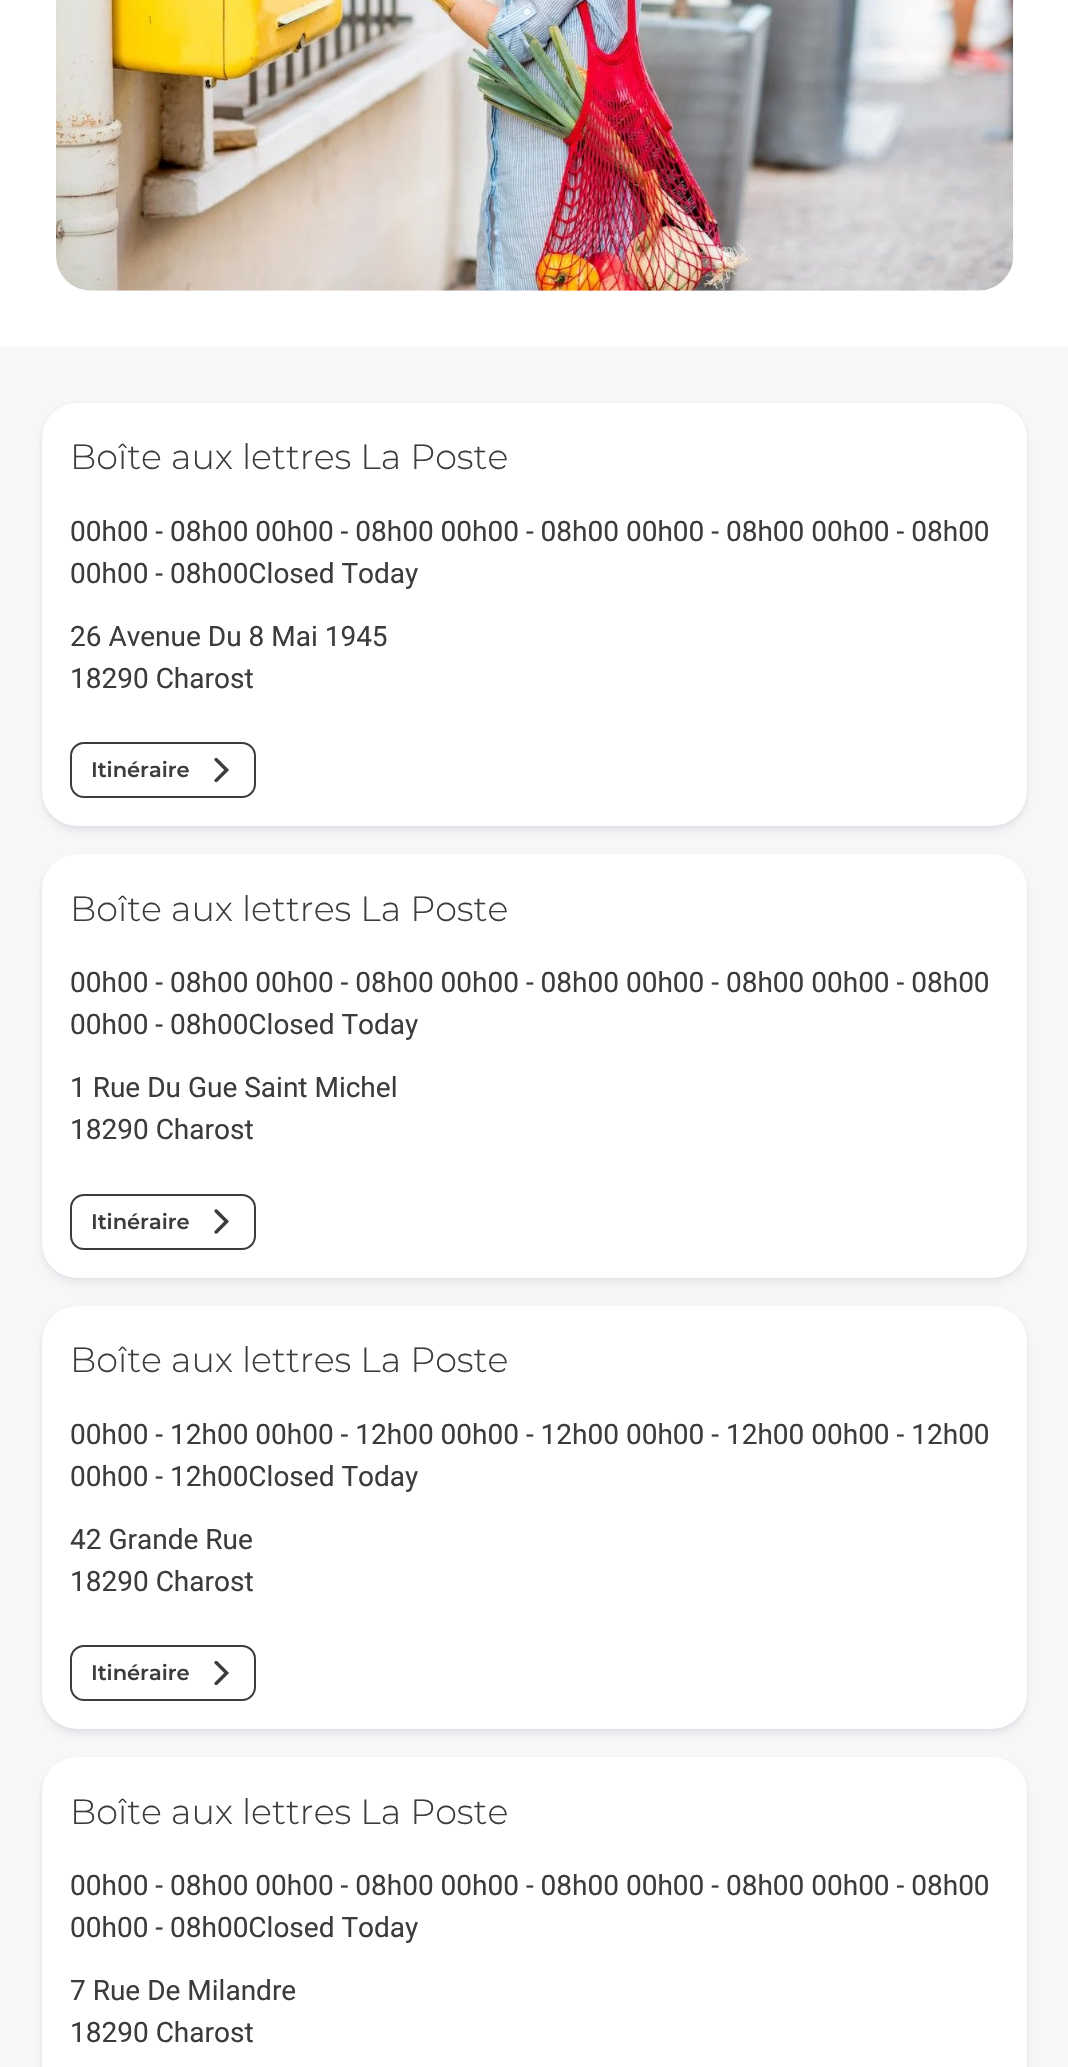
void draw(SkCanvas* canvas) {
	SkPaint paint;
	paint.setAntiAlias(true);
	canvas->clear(0xffffffff);
	canvas->drawImageRect(SkImages::DeferredFromEncodedData(SkData::MakeFromFileName("img1.png")), SkRect::MakeXYWH(56, 0, 958, 291), SkSamplingOptions());
	paint.setColor(0xfff7f7f7);
	canvas->drawRect(SkRect::MakeXYWH(0, 347, 1068, 1720), paint);
	paint.setColor(0x1a676e90);
	paint.setMaskFilter(SkMaskFilter::MakeBlur(kNormal_SkBlurStyle, 2));
	canvas->drawRoundRect(SkRect::MakeXYWH(42, 404, 985, 424), 35, 35, paint);
	paint.setMaskFilter(nullptr);
	paint.setColor(0x14676e90);
	paint.setMaskFilter(SkMaskFilter::MakeBlur(kNormal_SkBlurStyle, 3.5));
	canvas->drawRoundRect(SkRect::MakeXYWH(42, 410, 985, 423), 35, 35, paint);
	paint.setMaskFilter(nullptr);
	paint.setColor(0xffffffff);
	canvas->drawRoundRect(SkRect::MakeXYWH(42, 403, 985, 423), 35, 35, paint);
	SkFont f1(fontMgr->matchFamilyStyle("Montserrat", SkFontStyle(300, SkFontStyle::kNormal_Width, SkFontStyle::kUpright_Slant)), 35);
	f1.setSubpixel(true);
	paint.setColor(0xff3c3c3c);
	canvas->drawString("Boîte aux lettres La Poste", 70, 469, f1, paint);
	SkFont f2(fontMgr->matchFamilyStyle("Roboto", SkFontStyle::Normal()), 28);
	f2.setSubpixel(true);
	canvas->drawString("00h00 - 08h00 00h00 - 08h00 00h00 - 08h00 00h00 - 08h00 00h00 - 08h00", 70, 541, f2, paint);
	canvas->drawString("00h00 - 08h00Closed Today", 70, 583, f2, paint);
	canvas->drawString("26 Avenue Du 8 Mai 1945", 70, 646, f2, paint);
	canvas->drawString("18290 Charost", 70, 688, f2, paint);
	paint.setStroke(true);
	paint.setStrokeWidth(2);
	canvas->drawRoundRect(SkRect::MakeXYWH(71, 743, 184, 54), 13, 13, paint);
	SkFont f3(fontMgr->matchFamilyStyle("Montserrat", SkFontStyle(600, SkFontStyle::kNormal_Width, SkFontStyle::kUpright_Slant)), 21);
	f3.setSubpixel(true);
	paint.setStroke(false);
	canvas->drawString("Itinéraire", 91, 777, f3, paint);
	canvas->drawImageRect(SkImages::DeferredFromEncodedData(SkData::MakeFromFileName("img2.png")), SkRect::MakeXYWH(214, 758, 15, 24), SkSamplingOptions());
	paint.setColor(0x1a676e90);
	paint.setMaskFilter(SkMaskFilter::MakeBlur(kNormal_SkBlurStyle, 2));
	canvas->drawRoundRect(SkRect::MakeXYWH(42, 856, 985, 423), 35, 35, paint);
	paint.setMaskFilter(nullptr);
	paint.setColor(0x14676e90);
	paint.setMaskFilter(SkMaskFilter::MakeBlur(kNormal_SkBlurStyle, 3.5));
	canvas->drawRoundRect(SkRect::MakeXYWH(42, 861, 985, 424), 35, 35, paint);
	paint.setMaskFilter(nullptr);
	paint.setColor(0xffffffff);
	canvas->drawRoundRect(SkRect::MakeXYWH(42, 854, 985, 424), 35, 35, paint);
	paint.setColor(0xff3c3c3c);
	canvas->drawString("Boîte aux lettres La Poste", 70, 921, f1, paint);
	canvas->drawString("00h00 - 08h00 00h00 - 08h00 00h00 - 08h00 00h00 - 08h00 00h00 - 08h00", 70, 992, f2, paint);
	canvas->drawString("00h00 - 08h00Closed Today", 70, 1034, f2, paint);
	canvas->drawString("1 Rue Du Gue Saint Michel", 70, 1097, f2, paint);
	canvas->drawString("18290 Charost", 70, 1139, f2, paint);
	paint.setStroke(true);
	canvas->drawRoundRect(SkRect::MakeXYWH(71, 1195, 184, 54), 13, 13, paint);
	paint.setStroke(false);
	canvas->drawString("Itinéraire", 91, 1229, f3, paint);
	canvas->drawImageRect(SkImages::DeferredFromEncodedData(SkData::MakeFromFileName("img3.png")), SkRect::MakeXYWH(214, 1209, 15, 25), SkSamplingOptions());
	paint.setColor(0x1a676e90);
	paint.setMaskFilter(SkMaskFilter::MakeBlur(kNormal_SkBlurStyle, 2));
	canvas->drawRoundRect(SkRect::MakeXYWH(42, 1307, 985, 424), 35, 35, paint);
	paint.setMaskFilter(nullptr);
	paint.setColor(0x14676e90);
	paint.setMaskFilter(SkMaskFilter::MakeBlur(kNormal_SkBlurStyle, 3.5));
	canvas->drawRoundRect(SkRect::MakeXYWH(42, 1313, 985, 423), 35, 35, paint);
	paint.setMaskFilter(nullptr);
	paint.setColor(0xffffffff);
	canvas->drawRoundRect(SkRect::MakeXYWH(42, 1306, 985, 423), 35, 35, paint);
	paint.setColor(0xff3c3c3c);
	canvas->drawString("Boîte aux lettres La Poste", 70, 1372, f1, paint);
	canvas->drawString("00h00 - 12h00 00h00 - 12h00 00h00 - 12h00 00h00 - 12h00 00h00 - 12h00", 70, 1444, f2, paint);
	canvas->drawString("00h00 - 12h00Closed Today", 70, 1486, f2, paint);
	canvas->drawString("42 Grande Rue", 70, 1549, f2, paint);
	canvas->drawString("18290 Charost", 70, 1591, f2, paint);
	paint.setStroke(true);
	canvas->drawRoundRect(SkRect::MakeXYWH(71, 1646, 184, 54), 13, 13, paint);
	paint.setStroke(false);
	canvas->drawString("Itinéraire", 91, 1680, f3, paint);
	canvas->drawImageRect(SkImages::DeferredFromEncodedData(SkData::MakeFromFileName("img2.png")), SkRect::MakeXYWH(214, 1661, 15, 24), SkSamplingOptions());
	paint.setColor(0x1a676e90);
	paint.setMaskFilter(SkMaskFilter::MakeBlur(kNormal_SkBlurStyle, 2));
	canvas->drawRoundRect(SkRect::MakeXYWH(42, 1759, 985, 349), 35, 35, paint);
	paint.setMaskFilter(nullptr);
	paint.setColor(0x14676e90);
	paint.setMaskFilter(SkMaskFilter::MakeBlur(kNormal_SkBlurStyle, 3.5));
	canvas->drawRoundRect(SkRect::MakeXYWH(42, 1764, 985, 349), 35, 35, paint);
	paint.setMaskFilter(nullptr);
	paint.setColor(0xffffffff);
	canvas->drawRoundRect(SkRect::MakeXYWH(42, 1757, 985, 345), 35, 35, paint);
	paint.setColor(0xff3c3c3c);
	canvas->drawString("Boîte aux lettres La Poste", 70, 1824, f1, paint);
	canvas->drawString("00h00 - 08h00 00h00 - 08h00 00h00 - 08h00 00h00 - 08h00 00h00 - 08h00", 70, 1895, f2, paint);
	canvas->drawString("00h00 - 08h00Closed Today", 70, 1937, f2, paint);
	canvas->drawString("7 Rue De Milandre", 70, 2000, f2, paint);
	canvas->drawString("18290 Charost", 70, 2042, f2, paint);
}
